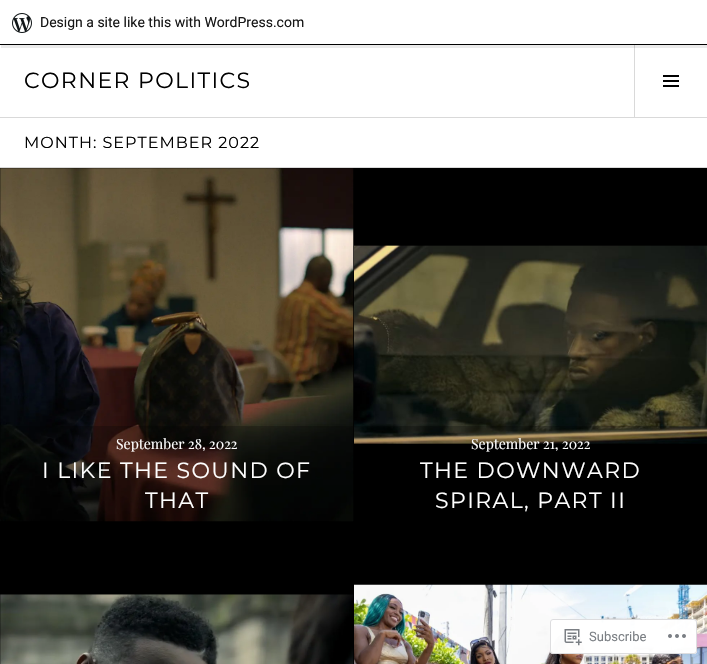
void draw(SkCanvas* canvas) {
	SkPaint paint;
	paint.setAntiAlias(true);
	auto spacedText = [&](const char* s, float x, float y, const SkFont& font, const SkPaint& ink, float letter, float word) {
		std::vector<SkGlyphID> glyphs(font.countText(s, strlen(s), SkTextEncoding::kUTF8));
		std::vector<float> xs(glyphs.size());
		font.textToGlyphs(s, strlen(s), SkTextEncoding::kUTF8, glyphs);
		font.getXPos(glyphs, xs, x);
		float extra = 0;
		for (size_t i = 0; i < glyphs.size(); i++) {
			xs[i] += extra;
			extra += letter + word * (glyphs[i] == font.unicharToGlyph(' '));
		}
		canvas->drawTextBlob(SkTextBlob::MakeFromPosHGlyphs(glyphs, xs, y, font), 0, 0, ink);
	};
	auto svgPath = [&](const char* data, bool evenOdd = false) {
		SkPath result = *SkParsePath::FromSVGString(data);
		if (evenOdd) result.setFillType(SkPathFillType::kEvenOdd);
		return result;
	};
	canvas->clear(0xffffffff);
	paint.setColor(0xffd9d9d9);
	canvas->drawRect(SkRect::MakeXYWH(634, 45, 1, 72), paint);
	paint.setColor(0x14000000);
	canvas->drawPath(svgPath("M1 45V48H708V3H707V45Z"), paint);
	canvas->drawImageRect(SkImages::DeferredFromEncodedData(SkData::MakeFromFileName("img1.png")), SkRect::MakeXYWH(12, 13, 20, 20), SkSamplingOptions());
	SkFont f1(fontMgr->matchFamilyStyle("Roboto", SkFontStyle::Normal()), 14);
	f1.setSubpixel(true);
	paint.setColor(0xff171717);
	canvas->drawString("Design a site like this with WordPress.com", 40, 27, f1, paint);
	paint.setColor(0xff000000);
	canvas->drawRect(SkRect::MakeXYWH(0, 44, 707, 1), paint);
	paint.setColor(0xffd9d9d9);
	canvas->drawRect(SkRect::MakeXYWH(0, 117, 707, 1), paint);
	SkFont f2(fontMgr->matchFamilyStyle("Montserrat", SkFontStyle::Normal()), 22);
	f2.setSubpixel(true);
	paint.setColor(0xff000000);
	spacedText("CORNER POLITICS", 24, 88, f2, paint, 1.4, 0);
	canvas->drawImageRect(SkImages::DeferredFromEncodedData(SkData::MakeFromFileName("img2.png")), SkRect::MakeXYWH(663, 75, 16, 12), SkSamplingOptions());
	paint.setColor(0xffd9d9d9);
	canvas->drawRect(SkRect::MakeXYWH(0, 167, 707, 1), paint);
	SkFont f3(fontMgr->matchFamilyStyle("Montserrat", SkFontStyle::Normal()), 16);
	f3.setSubpixel(true);
	paint.setColor(0xff000000);
	spacedText("MONTH: SEPTEMBER 2022", 24, 148, f3, paint, 1, 0);
	canvas->drawRect(SkRect::MakeXYWH(0, 168, 707, 354), paint);
	canvas->drawImageRect(SkImages::DeferredFromEncodedData(SkData::MakeFromFileName("img3.png")), SkRect::MakeXYWH(0, 168, 354, 354), SkSamplingOptions());
	paint.setColor(0x40000000);
	canvas->drawRect(SkRect::MakeXYWH(0, 426, 353, 96), paint);
	SkFont f4(fontMgr->matchFamilyStyle("Playfair Display", SkFontStyle::Normal()), 14);
	f4.setSubpixel(true);
	paint.setColor(0xffffffff);
	canvas->drawString("September 28, 2022", 116, 449, f4, paint);
	spacedText("I LIKE THE SOUND OF", 42, 478, f2, paint, 1.4, 0);
	spacedText("THAT", 145, 508, f2, paint, 1.4, 0);
	canvas->drawImageRect(SkImages::DeferredFromEncodedData(SkData::MakeFromFileName("img4.png")), SkRect::MakeXYWH(354, 245, 353, 199), SkSamplingOptions());
	paint.setColor(0x40000000);
	canvas->drawRect(SkRect::MakeXYWH(354, 426, 353, 18), paint);
	paint.setColor(0xffffffff);
	canvas->drawString("September 21, 2022", 471, 449, f4, paint);
	spacedText("THE DOWNWARD", 420, 478, f2, paint, 1.4, 0);
	spacedText("SPIRAL, PART II", 435, 508, f2, paint, 1.4, 0);
	paint.setColor(0xff000000);
	canvas->drawRect(SkRect::MakeXYWH(0, 522, 354, 142), paint);
	canvas->drawImageRect(SkImages::DeferredFromEncodedData(SkData::MakeFromFileName("img5.png")), SkRect::MakeXYWH(0, 594, 354, 70), SkSamplingOptions());
	canvas->drawRect(SkRect::MakeXYWH(354, 522, 353, 63), paint);
	canvas->drawImageRect(SkImages::DeferredFromEncodedData(SkData::MakeFromFileName("img6.png")), SkRect::MakeXYWH(354, 584, 353, 80), SkSamplingOptions());
	paint.setColor(0xfaffffff);
	canvas->drawRoundRect(SkRect::MakeXYWH(550, 619, 147, 35), 3, 3, paint);
	paint.setStroke(true);
	paint.setStrokeWidth(1);
	paint.setColor(0xfadcdcde);
	canvas->drawRoundRect(SkRect::MakeXYWH(550.5, 619.5, 146, 34), 2.5, 2.5, paint);
	canvas->drawImageRect(SkImages::DeferredFromEncodedData(SkData::MakeFromFileName("img7.png")), SkRect::MakeXYWH(564, 629, 18, 17), SkSamplingOptions());
	SkFont f5(fontMgr->matchFamilyStyle("Roboto", SkFontStyle::Normal()), 13);
	f5.setSubpixel(true);
	paint.setStroke(false);
	paint.setColor(0xff7b7f84);
	canvas->drawString("Subscribe", 589, 641, f5, paint);
	canvas->drawImageRect(SkImages::DeferredFromEncodedData(SkData::MakeFromFileName("img8.png")), SkRect::MakeXYWH(668, 634, 18, 4), SkSamplingOptions());
}
